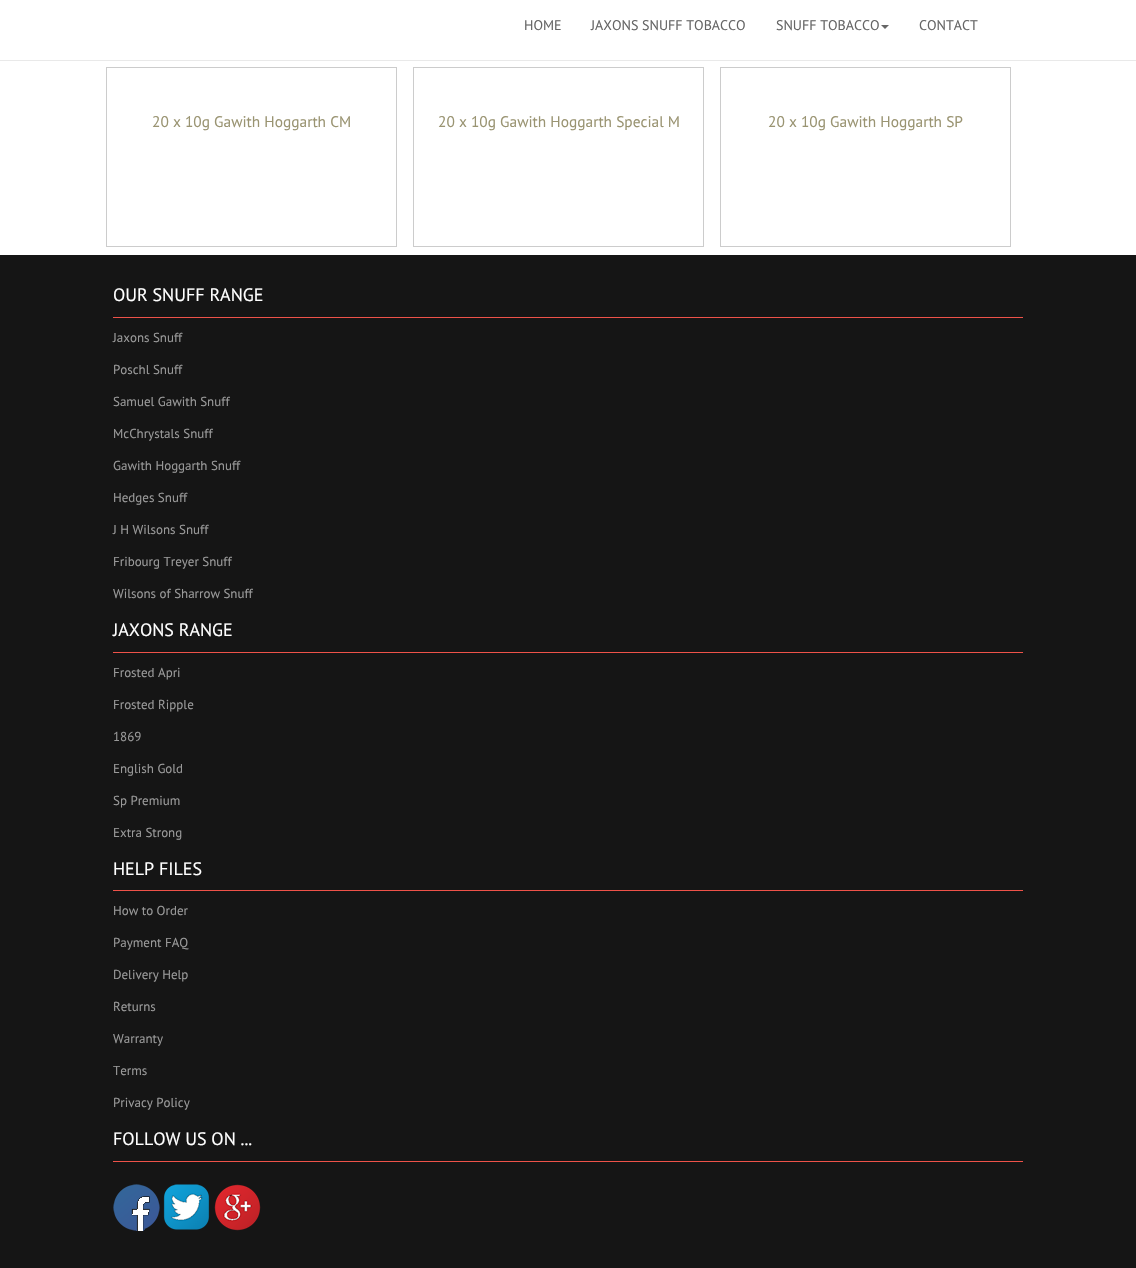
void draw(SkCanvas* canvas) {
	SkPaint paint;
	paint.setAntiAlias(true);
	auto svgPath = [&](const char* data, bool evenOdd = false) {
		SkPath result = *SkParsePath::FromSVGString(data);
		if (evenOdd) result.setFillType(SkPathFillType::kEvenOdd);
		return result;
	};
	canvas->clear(0xffffffff);
	paint.setColor(0xffe9e9e9);
	canvas->drawRect(SkRect::MakeXYWH(0, 60, 1136, 1), paint);
	SkFont f1(fontMgr->matchFamilyStyle("PT Sans", SkFontStyle::Normal()), 14);
	f1.setSubpixel(true);
	paint.setColor(0xff666666);
	canvas->drawString("HOME", 524, 30, f1, paint);
	canvas->drawString("JAXONS SNUFF TOBACCO", 591, 30, f1, paint);
	canvas->drawString("SNUFF TOBACCO", 776, 30, f1, paint);
	canvas->drawPath(svgPath("M881 25H889L885 29Z"), paint);
	canvas->drawString("CONTACT", 919, 30, f1, paint);
	paint.setStroke(true);
	paint.setStrokeWidth(1);
	paint.setColor(0xffcccccc);
	canvas->drawRect(SkRect::MakeXYWH(106.5, 67.5, 290, 179), paint);
	SkFont f2(fontMgr->matchFamilyStyle("PT Sans", SkFontStyle::Normal()), 15.4);
	f2.setSubpixel(true);
	paint.setStroke(false);
	paint.setColor(0xff9a9472);
	canvas->drawString("20 x 10g Gawith Hoggarth CM", 152, 127, f2, paint);
	paint.setStroke(true);
	paint.setColor(0xffcccccc);
	canvas->drawRect(SkRect::MakeXYWH(413.5, 67.5, 290, 179), paint);
	paint.setStroke(false);
	paint.setColor(0xff9a9472);
	canvas->drawString("20 x 10g Gawith Hoggarth Special M", 438, 127, f2, paint);
	paint.setStroke(true);
	paint.setColor(0xffcccccc);
	canvas->drawRect(SkRect::MakeXYWH(720.5, 67.5, 290, 179), paint);
	paint.setStroke(false);
	paint.setColor(0xff9a9472);
	canvas->drawString("20 x 10g Gawith Hoggarth SP", 768, 127, f2, paint);
	paint.setColor(0xff151515);
	canvas->drawRect(SkRect::MakeXYWH(0, 255, 1136, 1013), paint);
	paint.setColor(0xffee5249);
	canvas->drawRect(SkRect::MakeXYWH(113, 317, 910, 1), paint);
	SkFont f3(fontMgr->matchFamilyStyle("PT Sans", SkFontStyle::Normal()), 18);
	f3.setSubpixel(true);
	paint.setColor(0xffffffff);
	canvas->drawString("OUR SNUFF RANGE", 113, 301, f3, paint);
	SkFont f4(fontMgr->matchFamilyStyle("PT Sans", SkFontStyle::Normal()), 13);
	f4.setSubpixel(true);
	paint.setColor(0xff999999);
	canvas->drawString("Jaxons Snuff", 113, 342, f4, paint);
	canvas->drawString("Poschl Snuff", 113, 374, f4, paint);
	canvas->drawString("Samuel Gawith Snuff", 113, 406, f4, paint);
	canvas->drawString("McChrystals Snuff", 113, 438, f4, paint);
	canvas->drawString("Gawith Hoggarth Snuff", 113, 470, f4, paint);
	canvas->drawString("Hedges Snuff", 113, 502, f4, paint);
	canvas->drawString("J H Wilsons Snuff", 113, 534, f4, paint);
	canvas->drawString("Fribourg Treyer Snuff", 113, 566, f4, paint);
	canvas->drawString("Wilsons of Sharrow Snuff", 113, 598, f4, paint);
	paint.setColor(0xffee5249);
	canvas->drawRect(SkRect::MakeXYWH(113, 652, 910, 1), paint);
	paint.setColor(0xffffffff);
	canvas->drawString("JAXONS RANGE", 113, 636, f3, paint);
	paint.setColor(0xff999999);
	canvas->drawString("Frosted Apri", 113, 677, f4, paint);
	canvas->drawString("Frosted Ripple", 113, 709, f4, paint);
	canvas->drawString("1869", 113, 741, f4, paint);
	canvas->drawString("English Gold", 113, 773, f4, paint);
	canvas->drawString("Sp Premium", 113, 805, f4, paint);
	canvas->drawString("Extra Strong", 113, 837, f4, paint);
	paint.setColor(0xffee5249);
	canvas->drawRect(SkRect::MakeXYWH(113, 890, 910, 1), paint);
	paint.setColor(0xffffffff);
	canvas->drawString("HELP FILES", 113, 875, f3, paint);
	paint.setColor(0xff999999);
	canvas->drawString("How to Order", 113, 915, f4, paint);
	canvas->drawString("Payment FAQ", 113, 947, f4, paint);
	canvas->drawString("Delivery Help", 113, 979, f4, paint);
	canvas->drawString("Returns", 113, 1011, f4, paint);
	canvas->drawString("Warranty", 113, 1043, f4, paint);
	canvas->drawString("Terms", 113, 1075, f4, paint);
	canvas->drawString("Privacy Policy", 113, 1107, f4, paint);
	paint.setColor(0xffee5249);
	canvas->drawRect(SkRect::MakeXYWH(113, 1161, 910, 1), paint);
	paint.setColor(0xffffffff);
	canvas->drawString("FOLLOW US ON ...", 113, 1145, f3, paint);
	canvas->drawImageRect(SkImages::DeferredFromEncodedData(SkData::MakeFromFileName("img1.png")), SkRect::MakeXYWH(113, 1184, 47, 47), SkSamplingOptions());
	canvas->drawImageRect(SkImages::DeferredFromEncodedData(SkData::MakeFromFileName("img2.png")), SkRect::MakeXYWH(163, 1184, 47, 46), SkSamplingOptions());
	canvas->drawImageRect(SkImages::DeferredFromEncodedData(SkData::MakeFromFileName("img3.png")), SkRect::MakeXYWH(214, 1184, 47, 47), SkSamplingOptions());
}
